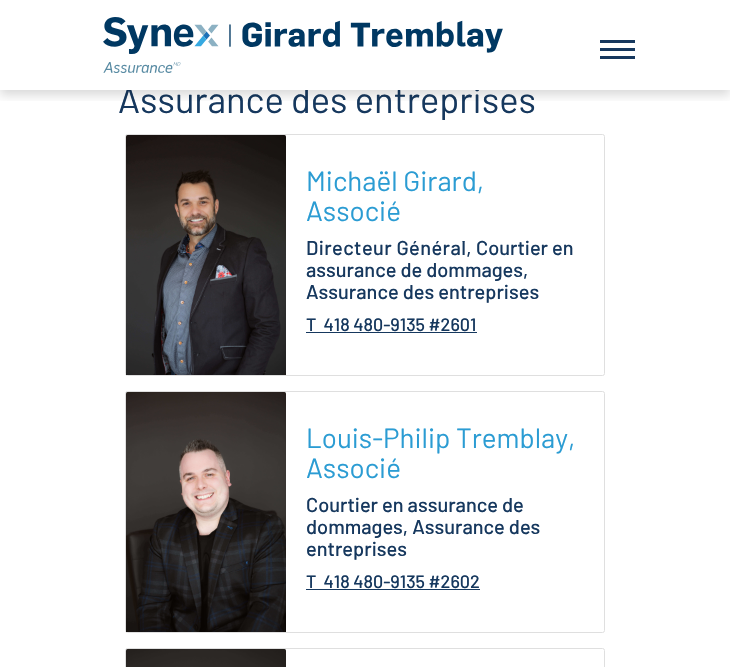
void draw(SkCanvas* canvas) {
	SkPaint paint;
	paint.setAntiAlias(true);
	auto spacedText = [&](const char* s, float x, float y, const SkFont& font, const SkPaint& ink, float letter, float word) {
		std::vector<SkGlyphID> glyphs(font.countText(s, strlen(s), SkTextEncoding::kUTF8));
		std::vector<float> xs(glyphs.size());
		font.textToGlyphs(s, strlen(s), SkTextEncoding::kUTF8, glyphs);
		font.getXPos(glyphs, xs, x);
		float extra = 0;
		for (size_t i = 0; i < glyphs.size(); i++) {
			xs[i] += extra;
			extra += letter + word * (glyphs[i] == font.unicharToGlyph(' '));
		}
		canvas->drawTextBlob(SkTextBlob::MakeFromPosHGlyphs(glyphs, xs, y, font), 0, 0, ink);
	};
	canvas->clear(0xffffffff);
	SkFont f1(fontMgr->matchFamilyStyle("Barlow", SkFontStyle::Normal()), 36.25);
	f1.setSubpixel(true);
	paint.setColor(0xff16385e);
	canvas->drawString("Assurance des entreprises", 118, 113, f1, paint);
	paint.setColor(0xffffffff);
	canvas->drawRect(SkRect::MakeXYWH(126, 87, 354, 3), paint);
	canvas->save();
	canvas->clipRect(SkRect::MakeXYWH(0, 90, 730, 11));
	paint.setColor(0x26000000);
	paint.setMaskFilter(SkMaskFilter::MakeBlur(kNormal_SkBlurStyle, 5));
	canvas->drawRect(SkRect::MakeXYWH(0, 5, 730, 90), paint);
	paint.setMaskFilter(nullptr);
	canvas->restore();
	canvas->drawImageRect(SkImages::DeferredFromEncodedData(SkData::MakeFromFileName("img1.png")), SkRect::MakeXYWH(103, 17, 400, 56), SkSamplingOptions());
	paint.setColor(0xff16385e);
	canvas->drawRect(SkRect::MakeXYWH(600, 40, 35, 3), paint);
	canvas->drawRect(SkRect::MakeXYWH(600, 48, 35, 3), paint);
	canvas->drawRect(SkRect::MakeXYWH(600, 56, 35, 3), paint);
	paint.setStroke(true);
	paint.setStrokeWidth(1);
	paint.setColor(0xffdfdfdf);
	canvas->drawRoundRect(SkRect::MakeXYWH(125.5, 134.5, 479, 241), 2, 2, paint);
	canvas->drawImageRect(SkImages::DeferredFromEncodedData(SkData::MakeFromFileName("img2.png")), SkRect::MakeXYWH(126, 135, 160, 240), SkSamplingOptions());
	SkFont f2(fontMgr->matchFamilyStyle("Barlow", SkFontStyle::Normal()), 27.75);
	f2.setSubpixel(true);
	paint.setStroke(false);
	paint.setColor(0xff2b9cd3);
	canvas->drawString("Michaël Girard,", 306, 191, f2, paint);
	canvas->drawString("Associé", 306, 221, f2, paint);
	SkFont f3(fontMgr->matchFamilyStyle("Barlow", SkFontStyle(500, SkFontStyle::kNormal_Width, SkFontStyle::kUpright_Slant)), 20);
	f3.setSubpixel(true);
	paint.setColor(0xff16385e);
	spacedText("Directeur Général,", 306, 255, f3, paint, 0.4, 0);
	canvas->drawString("Courtier en", 476, 255, f3, paint);
	canvas->drawString("assurance de dommages,", 306, 277, f3, paint);
	canvas->drawString("Assurance des entreprises", 306, 299, f3, paint);
	SkFont f4(fontMgr->matchFamilyStyle("Barlow", SkFontStyle(500, SkFontStyle::kNormal_Width, SkFontStyle::kUpright_Slant)), 18);
	f4.setSubpixel(true);
	canvas->drawString("T  418 480-9135 #2601", 306, 331, f4, paint);
	canvas->drawRect(SkRect::MakeXYWH(306, 332, 171, 1), paint);
	paint.setStroke(true);
	paint.setColor(0xffdfdfdf);
	canvas->drawRoundRect(SkRect::MakeXYWH(125.5, 391.5, 479, 241), 2, 2, paint);
	canvas->drawImageRect(SkImages::DeferredFromEncodedData(SkData::MakeFromFileName("img3.png")), SkRect::MakeXYWH(126, 392, 160, 240), SkSamplingOptions());
	paint.setStroke(false);
	paint.setColor(0xff2b9cd3);
	canvas->drawString("Louis-Philip Tremblay,", 306, 448, f2, paint);
	canvas->drawString("Associé", 306, 478, f2, paint);
	paint.setColor(0xff16385e);
	canvas->drawString("Courtier en assurance de", 306, 512, f3, paint);
	canvas->drawString("dommages, Assurance des", 306, 534, f3, paint);
	canvas->drawString("entreprises", 306, 556, f3, paint);
	canvas->drawString("T  418 480-9135 #2602", 306, 588, f4, paint);
	canvas->drawRect(SkRect::MakeXYWH(306, 589, 174, 1), paint);
	paint.setStroke(true);
	paint.setColor(0xffdfdfdf);
	canvas->drawRoundRect(SkRect::MakeXYWH(125.5, 648.5, 479, 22), 2, 2, paint);
	canvas->drawImageRect(SkImages::DeferredFromEncodedData(SkData::MakeFromFileName("img4.png")), SkRect::MakeXYWH(126, 649, 160, 18), SkSamplingOptions());
}
